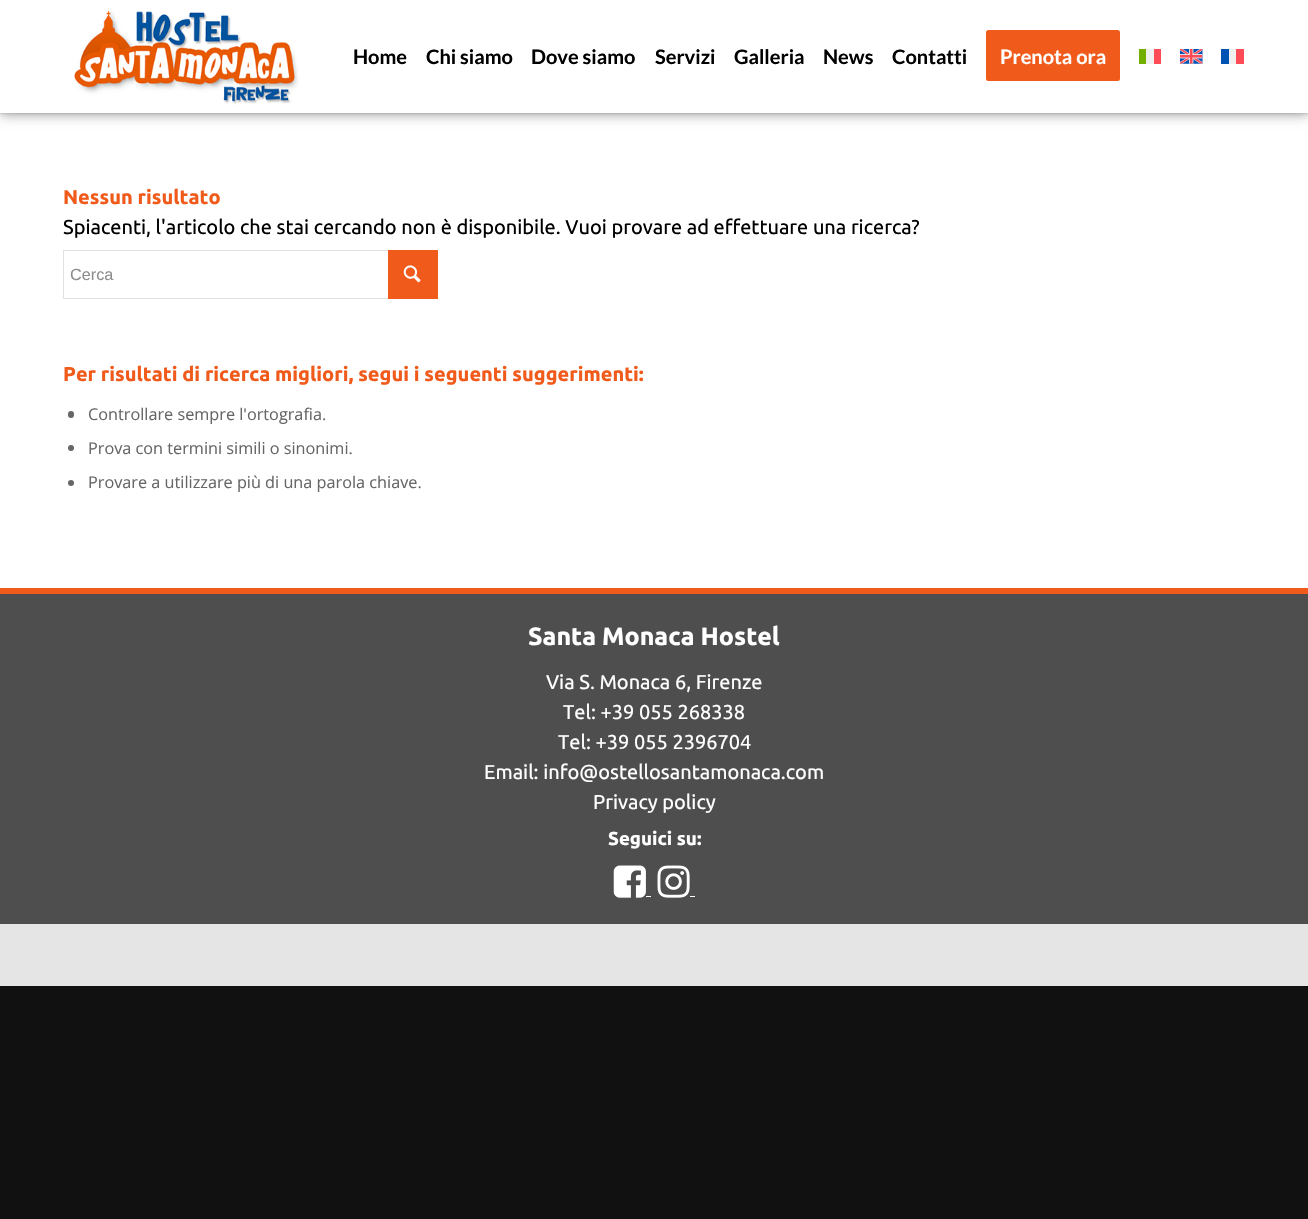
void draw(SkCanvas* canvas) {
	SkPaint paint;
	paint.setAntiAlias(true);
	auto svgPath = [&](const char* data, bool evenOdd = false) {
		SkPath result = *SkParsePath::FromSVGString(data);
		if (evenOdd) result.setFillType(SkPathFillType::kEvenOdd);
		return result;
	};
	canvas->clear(0xff111111);
	paint.setColor(0xffffffff);
	canvas->drawRect(SkRect::MakeXYWH(0, 113, 1308, 475), paint);
	paint.setColor(0x1a000000);
	paint.setMaskFilter(SkMaskFilter::MakeBlur(kNormal_SkBlurStyle, 1));
	canvas->drawRect(SkRect::MakeXYWH(-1, -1, 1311, 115), paint);
	paint.setMaskFilter(nullptr);
	paint.setColor(0xffffffff);
	canvas->drawRect(SkRect::MakeXYWH(0, 0, 1308, 113), paint);
	canvas->save();
	canvas->clipPath(svgPath("M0 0H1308V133H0ZM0 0H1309V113H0Z", true), true);
	paint.setColor(0x66000000);
	paint.setMaskFilter(SkMaskFilter::MakeBlur(kNormal_SkBlurStyle, 6));
	canvas->drawRect(SkRect::MakeXYWH(0, 1, 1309, 113), paint);
	paint.setMaskFilter(nullptr);
	canvas->restore();
	canvas->drawImageRect(SkImages::DeferredFromEncodedData(SkData::MakeFromFileName("img1.png")), SkRect::MakeXYWH(62, 10, 246, 103), SkSamplingOptions());
	SkFont f1(fontMgr->matchFamilyStyle("Lato", SkFontStyle::Bold()), 20);
	f1.setSubpixel(true);
	paint.setColor(0xff000000);
	canvas->drawString("Home", 353, 64, f1, paint);
	canvas->drawString("Chi siamo", 426, 64, f1, paint);
	canvas->drawString("Dove siamo", 531, 64, f1, paint);
	canvas->drawString("Servizi", 655, 64, f1, paint);
	canvas->drawString("Galleria", 734, 64, f1, paint);
	canvas->drawString("News", 823, 64, f1, paint);
	canvas->drawString("Contatti", 892, 64, f1, paint);
	paint.setColor(0xfff05a1a);
	canvas->drawRoundRect(SkRect::MakeXYWH(987.5, 31.5, 131, 48), 1, 1, paint);
	paint.setStroke(true);
	paint.setStrokeWidth(3);
	canvas->drawRoundRect(SkRect::MakeXYWH(987.5, 31.5, 131, 48), 1, 1, paint);
	paint.setStroke(false);
	paint.setColor(0xffffffff);
	canvas->drawString("Prenota ora", 1000, 64, f1, paint);
	paint.setColor(0xfff0f0f0);
	canvas->drawRect(SkRect::MakeXYWH(1146, 49, 8, 15), paint);
	paint.setColor(0xffff4b55);
	canvas->drawRect(SkRect::MakeXYWH(1154, 49, 7, 15), paint);
	paint.setColor(0xff73af00);
	canvas->drawRect(SkRect::MakeXYWH(1139, 49, 7, 15), paint);
	canvas->drawImageRect(SkImages::DeferredFromEncodedData(SkData::MakeFromFileName("img2.png")), SkRect::MakeXYWH(1180, 49, 23, 15), SkSamplingOptions());
	paint.setColor(0xfff0f0f0);
	canvas->drawRect(SkRect::MakeXYWH(1229, 49, 7, 15), paint);
	paint.setColor(0xffff4b55);
	canvas->drawRect(SkRect::MakeXYWH(1236, 49, 8, 15), paint);
	paint.setColor(0xff0052b4);
	canvas->drawRect(SkRect::MakeXYWH(1221, 49, 8, 15), paint);
	SkFont f2(fontMgr->matchFamilyStyle("Ubuntu", SkFontStyle::Bold()), 20);
	f2.setSubpixel(true);
	paint.setColor(0xfff05a1a);
	canvas->drawString("Nessun risultato", 63, 204, f2, paint);
	SkFont f3(fontMgr->matchFamilyStyle("Ubuntu", SkFontStyle::Normal()), 20);
	f3.setSubpixel(true);
	paint.setColor(0xff000000);
	canvas->drawString("Spiacenti, l'articolo che stai cercando non è disponibile. Vuoi provare ad effettuare una ricerca?", 63, 234, f3, paint);
	paint.setStroke(true);
	paint.setStrokeWidth(1);
	paint.setColor(0xffe1e1e1);
	canvas->drawRect(SkRect::MakeXYWH(63.5, 250.5, 374, 48), paint);
	SkFont f4(fontMgr->matchFamilyStyle("Liberation Sans", SkFontStyle::Normal()), 16.25);
	f4.setSubpixel(true);
	paint.setStroke(false);
	paint.setColor(0xff8d8d8d);
	canvas->drawString("Cerca", 70, 280, f4, paint);
	paint.setColor(0xfff05a1a);
	canvas->drawRect(SkRect::MakeXYWH(388, 250, 50, 49), paint);
	canvas->drawImageRect(SkImages::DeferredFromEncodedData(SkData::MakeFromFileName("img3.png")), SkRect::MakeXYWH(403, 265, 18, 18), SkSamplingOptions());
	canvas->drawString("Per risultati di ricerca migliori, segui i seguenti suggerimenti:", 63, 381, f2, paint);
	paint.setColor(0xff666666);
	canvas->drawRoundRect(SkRect::MakeXYWH(68, 411, 6, 7), 3, 3, paint);
	SkFont f5(fontMgr->matchFamilyStyle("Open Sans", SkFontStyle::Normal()), 16.25);
	f5.setSubpixel(true);
	canvas->drawString("Controllare sempre l'ortografia.", 88, 420, f5, paint);
	canvas->drawCircle(71, 448, 3, paint);
	canvas->drawString("Prova con termini simili o sinonimi.", 88, 454, f5, paint);
	canvas->drawCircle(71, 483, 3, paint);
	canvas->drawString("Provare a utilizzare più di una parola chiave.", 88, 488, f5, paint);
	paint.setColor(0xfff05a1a);
	canvas->drawRect(SkRect::MakeXYWH(0, 588, 1308, 6), paint);
	paint.setColor(0xff4e4e4e);
	canvas->drawRect(SkRect::MakeXYWH(0, 594, 1308, 330), paint);
	SkFont f6(fontMgr->matchFamilyStyle("Ubuntu", SkFontStyle::Bold()), 25);
	f6.setSubpixel(true);
	paint.setColor(0xffffffff);
	canvas->drawString("Santa Monaca Hostel", 528, 645, f6, paint);
	canvas->drawString("Via S. Monaca 6, Firenze", 546, 689, f3, paint);
	canvas->drawString("Tel: +39 055 268338", 563, 719, f3, paint);
	canvas->drawString("Tel: +39 055 2396704", 558, 749, f3, paint);
	canvas->drawString("Email: info@ostellosantamonaca.com", 484, 779, f3, paint);
	canvas->drawString("Privacy policy", 593, 809, f3, paint);
	SkFont f7(fontMgr->matchFamilyStyle("Ubuntu", SkFontStyle::Bold()), 18.75);
	f7.setSubpixel(true);
	canvas->drawString("Seguici su:", 608, 845, f7, paint);
	canvas->drawImageRect(SkImages::DeferredFromEncodedData(SkData::MakeFromFileName("img4.png")), SkRect::MakeXYWH(613, 865, 33, 33), SkSamplingOptions());
	paint.setColor(0xfffffefd);
	canvas->drawRect(SkRect::MakeXYWH(646, 896, 5, 1), paint);
	canvas->drawImageRect(SkImages::DeferredFromEncodedData(SkData::MakeFromFileName("img5.png")), SkRect::MakeXYWH(657, 865, 33, 33), SkSamplingOptions());
	canvas->drawRect(SkRect::MakeXYWH(690, 896, 5, 1), paint);
	paint.setColor(0xffe5e5e5);
	canvas->drawRect(SkRect::MakeXYWH(0, 924, 1308, 62), paint);
}
